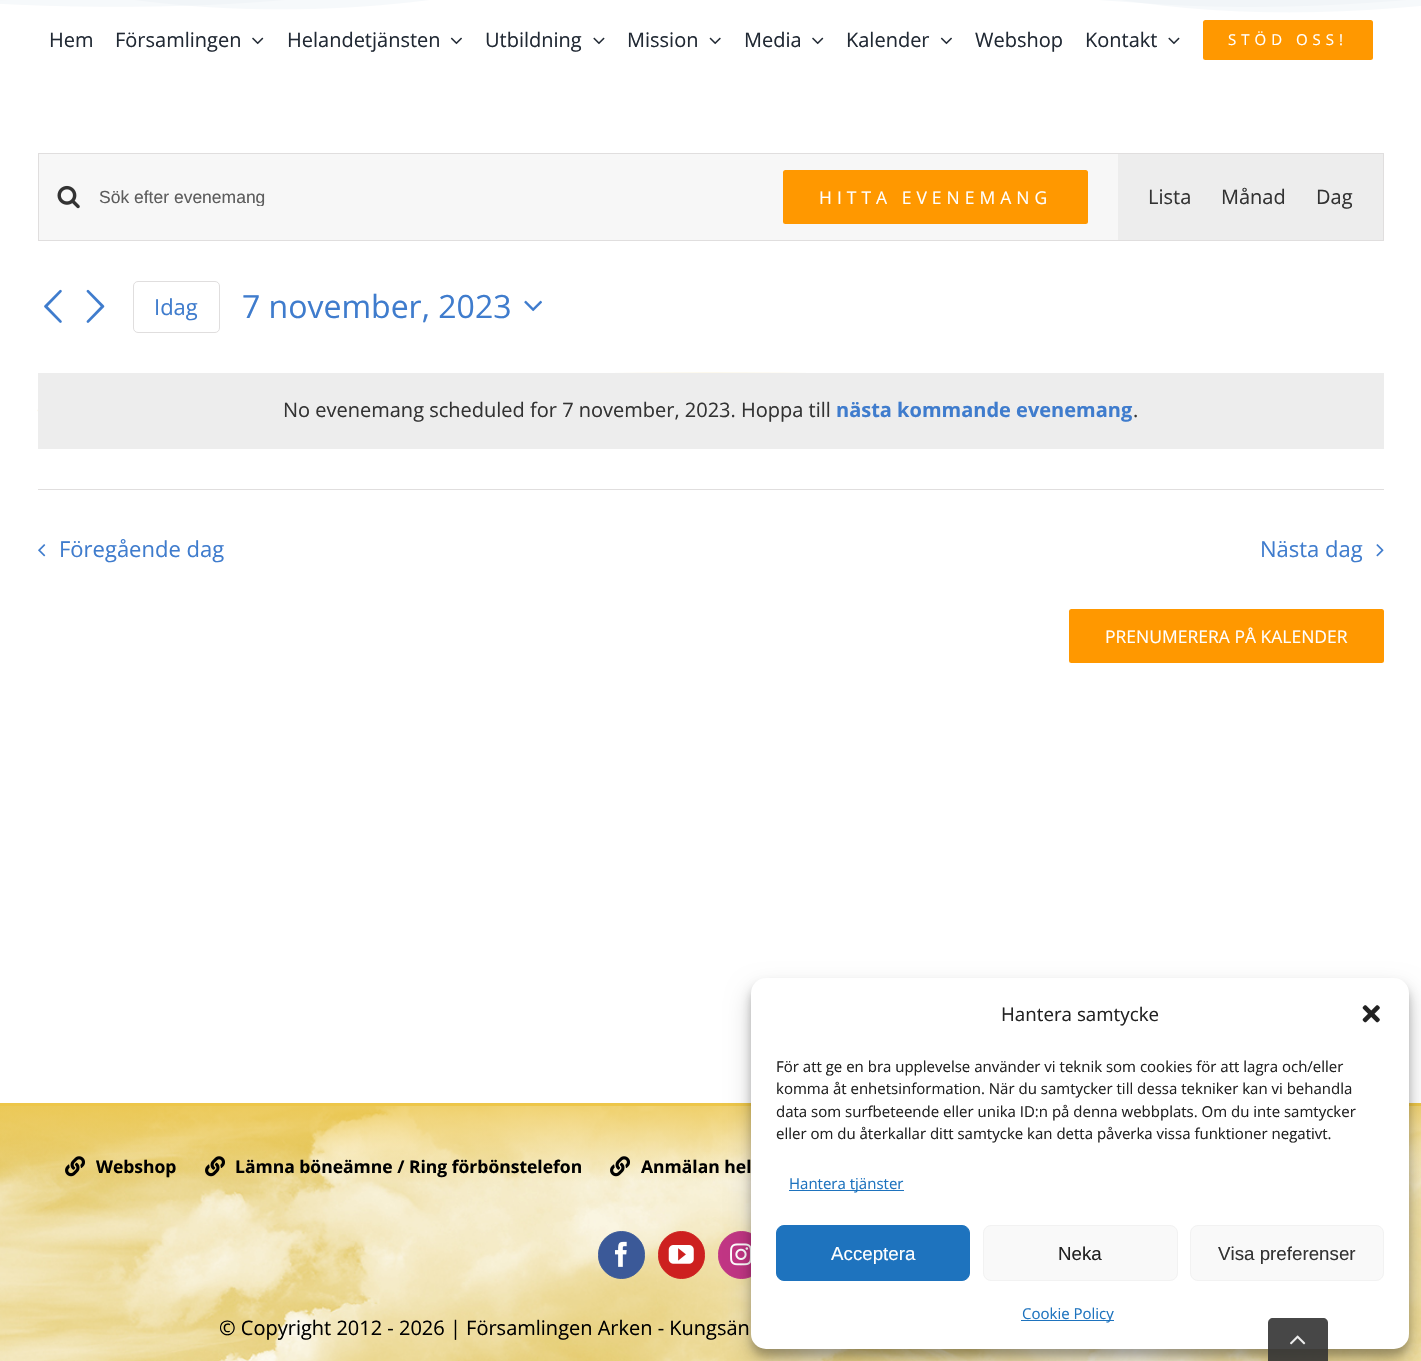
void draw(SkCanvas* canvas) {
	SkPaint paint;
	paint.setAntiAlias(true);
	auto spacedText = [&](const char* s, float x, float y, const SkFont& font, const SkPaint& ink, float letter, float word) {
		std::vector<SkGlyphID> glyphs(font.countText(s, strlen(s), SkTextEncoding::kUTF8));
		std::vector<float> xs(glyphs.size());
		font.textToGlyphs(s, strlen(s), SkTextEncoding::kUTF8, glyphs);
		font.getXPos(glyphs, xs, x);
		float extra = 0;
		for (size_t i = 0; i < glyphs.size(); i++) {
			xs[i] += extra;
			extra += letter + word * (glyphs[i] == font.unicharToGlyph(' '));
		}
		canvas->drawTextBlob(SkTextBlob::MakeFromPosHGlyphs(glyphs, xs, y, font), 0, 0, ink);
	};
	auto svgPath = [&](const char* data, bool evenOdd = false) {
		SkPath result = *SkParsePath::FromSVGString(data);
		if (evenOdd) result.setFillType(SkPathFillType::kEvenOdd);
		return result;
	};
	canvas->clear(0xffffffff);
	canvas->drawImageRect(SkImages::DeferredFromEncodedData(SkData::MakeFromFileName("img1.png")), SkRect::MakeXYWH(0, 0, 1421, 13), SkSamplingOptions());
	SkFont f1(fontMgr->matchFamilyStyle("Open Sans", SkFontStyle::Normal()), 20);
	f1.setSubpixel(true);
	paint.setColor(0xff212934);
	canvas->drawString("Hem", 49, 47, f1, paint);
	canvas->drawString("Församlingen", 115, 47, f1, paint);
	canvas->drawImageRect(SkImages::DeferredFromEncodedData(SkData::MakeFromFileName("img2.png")), SkRect::MakeXYWH(252, 37, 12, 8), SkSamplingOptions());
	canvas->drawString("Helandetjänsten", 287, 47, f1, paint);
	canvas->drawImageRect(SkImages::DeferredFromEncodedData(SkData::MakeFromFileName("img3.png")), SkRect::MakeXYWH(450, 37, 12, 8), SkSamplingOptions());
	canvas->drawString("Utbildning", 485, 47, f1, paint);
	canvas->drawImageRect(SkImages::DeferredFromEncodedData(SkData::MakeFromFileName("img4.png")), SkRect::MakeXYWH(593, 37, 12, 8), SkSamplingOptions());
	canvas->drawString("Mission", 627, 47, f1, paint);
	canvas->drawImageRect(SkImages::DeferredFromEncodedData(SkData::MakeFromFileName("img5.png")), SkRect::MakeXYWH(709, 37, 12, 8), SkSamplingOptions());
	canvas->drawString("Media", 744, 47, f1, paint);
	canvas->drawImageRect(SkImages::DeferredFromEncodedData(SkData::MakeFromFileName("img2.png")), SkRect::MakeXYWH(812, 37, 12, 8), SkSamplingOptions());
	canvas->drawString("Kalender", 846, 47, f1, paint);
	canvas->drawImageRect(SkImages::DeferredFromEncodedData(SkData::MakeFromFileName("img3.png")), SkRect::MakeXYWH(940, 37, 12, 8), SkSamplingOptions());
	canvas->drawString("Webshop", 975, 47, f1, paint);
	canvas->drawString("Kontakt", 1085, 47, f1, paint);
	canvas->drawImageRect(SkImages::DeferredFromEncodedData(SkData::MakeFromFileName("img4.png")), SkRect::MakeXYWH(1168, 37, 12, 8), SkSamplingOptions());
	paint.setColor(0xffff9800);
	canvas->drawRoundRect(SkRect::MakeXYWH(1203, 20, 170, 40), 2.5, 2.5, paint);
	SkFont f2(fontMgr->matchFamilyStyle("Open Sans", SkFontStyle::Normal()), 15);
	f2.setSubpixel(true);
	paint.setColor(0xffffffff);
	spacedText("STÖD OSS!", 1228, 45, f2, paint, 5, 0);
	paint.setColor(0xfff7f7f7);
	canvas->drawRect(SkRect::MakeXYWH(39, 154, 1079, 86), paint);
	paint.setStroke(true);
	paint.setStrokeWidth(1);
	paint.setColor(0xffe0dede);
	canvas->drawRect(SkRect::MakeXYWH(38.5, 153.5, 1345, 87), paint);
	canvas->drawImageRect(SkImages::DeferredFromEncodedData(SkData::MakeFromFileName("img6.png")), SkRect::MakeXYWH(57, 185, 23, 24), SkSamplingOptions());
	canvas->save();
	canvas->clipRect(SkRect::MakeXYWH(99, 186, 629, 20));
	SkFont f3(fontMgr->matchFamilyStyle("Liberation Sans", SkFontStyle::Normal()), 17.5);
	f3.setSubpixel(true);
	paint.setStroke(false);
	paint.setColor(0xff5d5d5d);
	canvas->drawString("Sök efter evenemang", 99, 203, f3, paint);
	canvas->restore();
	paint.setColor(0xffff9800);
	canvas->drawRoundRect(SkRect::MakeXYWH(783, 170, 305, 54), 2.5, 2.5, paint);
	SkFont f4(fontMgr->matchFamilyStyle("Open Sans", SkFontStyle::Normal()), 17.5);
	f4.setSubpixel(true);
	paint.setColor(0xffffffff);
	spacedText("HITTA EVENEMANG", 819, 204, f4, paint, 5, 0);
	paint.setColor(0xffededed);
	canvas->drawRect(SkRect::MakeXYWH(1118, 154, 265, 86), paint);
	paint.setColor(0xff333333);
	canvas->drawString("Lista", 1148, 204, f1, paint);
	canvas->drawString("Månad", 1221, 204, f1, paint);
	canvas->drawString("Dag", 1316, 204, f1, paint);
	canvas->drawImageRect(SkImages::DeferredFromEncodedData(SkData::MakeFromFileName("img7.png")), SkRect::MakeXYWH(44, 289, 18, 34), SkSamplingOptions());
	canvas->drawImageRect(SkImages::DeferredFromEncodedData(SkData::MakeFromFileName("img8.png")), SkRect::MakeXYWH(86, 289, 19, 34), SkSamplingOptions());
	paint.setStroke(true);
	paint.setColor(0xffe0dede);
	canvas->drawRoundRect(SkRect::MakeXYWH(133.5, 281.5, 86, 51), 4.5, 4.5, paint);
	SkFont f5(fontMgr->matchFamilyStyle("Open Sans", SkFontStyle::Normal()), 22);
	f5.setSubpixel(true);
	paint.setStroke(false);
	paint.setColor(0xff3f7ccd);
	canvas->drawString("Idag", 154, 315, f5, paint);
	SkFont f6(fontMgr->matchFamilyStyle("Open Sans", SkFontStyle::Normal()), 32);
	f6.setSubpixel(true);
	canvas->drawString("7 november, 2023", 242, 318, f6, paint);
	canvas->drawImageRect(SkImages::DeferredFromEncodedData(SkData::MakeFromFileName("img9.png")), SkRect::MakeXYWH(524, 300, 18, 12), SkSamplingOptions());
	paint.setColor(0xfffcf4db);
	canvas->drawOval(SkRect::MakeXYWH(37.5, 372.5, 1346, 76), paint);
	paint.setColor(0xffededed);
	canvas->drawRect(SkRect::MakeXYWH(38, 373, 1346, 76), paint);
	paint.setColor(0xff333333);
	canvas->drawString("No evenemang scheduled for 7 november, 2023. Hoppa till", 283, 417, f1, paint);
	SkFont f7(fontMgr->matchFamilyStyle("Open Sans", SkFontStyle::Bold()), 20);
	f7.setSubpixel(true);
	paint.setColor(0xff3f7ccd);
	canvas->drawString("nästa kommande evenemang", 836, 417, f7, paint);
	paint.setColor(0xff333333);
	canvas->drawString(".", 1133, 417, f1, paint);
	paint.setColor(0xffe0dede);
	canvas->drawRect(SkRect::MakeXYWH(38, 489, 1346, 1), paint);
	canvas->drawImageRect(SkImages::DeferredFromEncodedData(SkData::MakeFromFileName("img10.png")), SkRect::MakeXYWH(38, 544, 8, 13), SkSamplingOptions());
	paint.setColor(0xff3f7ccd);
	canvas->drawString("Föregående dag", 59, 557, f5, paint);
	canvas->drawString("Nästa dag", 1260, 557, f5, paint);
	canvas->drawImageRect(SkImages::DeferredFromEncodedData(SkData::MakeFromFileName("img11.png")), SkRect::MakeXYWH(1376, 544, 8, 13), SkSamplingOptions());
	paint.setColor(0xffff9800);
	canvas->drawRoundRect(SkRect::MakeXYWH(1069, 609, 315, 54), 2.5, 2.5, paint);
	paint.setColor(0xffffffff);
	canvas->drawString("PRENUMERERA PÅ KALENDER", 1105, 643, f4, paint);
	canvas->drawImageRect(SkImages::DeferredFromEncodedData(SkData::MakeFromFileName("img12.png")), SkRect::MakeXYWH(0, 1106, 1421, 255), SkSamplingOptions());
	paint.setColor(0xffedc649);
	canvas->drawRect(SkRect::MakeXYWH(0, 1103, 1421, 3), paint);
	canvas->drawImageRect(SkImages::DeferredFromEncodedData(SkData::MakeFromFileName("img13.png")), SkRect::MakeXYWH(65, 1156, 20, 21), SkSamplingOptions());
	SkFont f8(fontMgr->matchFamilyStyle("Open Sans", SkFontStyle::Bold()), 17.5);
	f8.setSubpixel(true);
	paint.setColor(0xff000000);
	canvas->drawString("Webshop", 96, 1173, f8, paint);
	canvas->drawImageRect(SkImages::DeferredFromEncodedData(SkData::MakeFromFileName("img14.png")), SkRect::MakeXYWH(205, 1156, 20, 21), SkSamplingOptions());
	canvas->drawString("Lämna böneämne / Ring förbönstelefon", 235, 1173, f8, paint);
	canvas->drawImageRect(SkImages::DeferredFromEncodedData(SkData::MakeFromFileName("img15.png")), SkRect::MakeXYWH(610, 1156, 20, 21), SkSamplingOptions());
	canvas->drawString("Anmälan hel", 641, 1173, f8, paint);
	paint.setColor(0xff3b5998);
	canvas->drawRoundRect(SkRect::MakeXYWH(598.5, 1231.5, 46, 47), 23, 23, paint);
	paint.setStroke(true);
	canvas->drawRoundRect(SkRect::MakeXYWH(598.5, 1231.5, 46, 47), 23, 23, paint);
	canvas->drawImageRect(SkImages::DeferredFromEncodedData(SkData::MakeFromFileName("img16.png")), SkRect::MakeXYWH(615, 1241, 12, 26), SkSamplingOptions());
	paint.setStroke(false);
	paint.setColor(0xffcd201f);
	canvas->drawRoundRect(SkRect::MakeXYWH(658.5, 1231.5, 46, 47), 23, 23, paint);
	paint.setStroke(true);
	canvas->drawRoundRect(SkRect::MakeXYWH(658.5, 1231.5, 46, 47), 23, 23, paint);
	canvas->drawImageRect(SkImages::DeferredFromEncodedData(SkData::MakeFromFileName("img17.png")), SkRect::MakeXYWH(668, 1245, 26, 19), SkSamplingOptions());
	paint.setStroke(false);
	paint.setColor(0xffc13584);
	canvas->drawRoundRect(SkRect::MakeXYWH(718.5, 1231.5, 46, 47), 23, 23, paint);
	paint.setStroke(true);
	canvas->drawRoundRect(SkRect::MakeXYWH(718.5, 1231.5, 46, 47), 23, 23, paint);
	canvas->drawImageRect(SkImages::DeferredFromEncodedData(SkData::MakeFromFileName("img18.png")), SkRect::MakeXYWH(730, 1243, 21, 23), SkSamplingOptions());
	paint.setStroke(false);
	paint.setColor(0xff000000);
	canvas->drawString("© Copyright 2012 - 2026 | Församlingen Arken - Kungsän", 219, 1335, f1, paint);
	paint.setColor(0x3b000000);
	paint.setMaskFilter(SkMaskFilter::MakeBlur(kNormal_SkBlurStyle, 4));
	canvas->drawRoundRect(SkRect::MakeXYWH(751, 985, 658, 371), 15, 15, paint);
	paint.setMaskFilter(nullptr);
	paint.setColor(0x30000000);
	paint.setMaskFilter(SkMaskFilter::MakeBlur(kNormal_SkBlurStyle, 12.5));
	canvas->drawRoundRect(SkRect::MakeXYWH(751, 990, 658, 371), 15, 15, paint);
	paint.setMaskFilter(nullptr);
	paint.setColor(0xffffffff);
	canvas->drawRoundRect(SkRect::MakeXYWH(751, 978, 658, 371), 15, 15, paint);
	SkFont f9(fontMgr->matchFamilyStyle("Open Sans", SkFontStyle::Normal()), 18.75);
	f9.setSubpixel(true);
	paint.setColor(0xff222222);
	canvas->drawString("Hantera samtycke", 1001, 1021, f9, paint);
	canvas->drawImageRect(SkImages::DeferredFromEncodedData(SkData::MakeFromFileName("img19.png")), SkRect::MakeXYWH(1362, 1005, 18, 18), SkSamplingOptions());
	canvas->drawString("För att ge en bra upplevelse använder vi teknik som cookies för att lagra och/eller", 776, 1072, f2, paint);
	canvas->drawString("komma åt enhetsinformation. När du samtycker till dessa tekniker kan vi behandla", 776, 1094, f2, paint);
	canvas->drawString("data som surfbeteende eller unika ID:n på denna webbplats. Om du inte samtycker", 776, 1117, f2, paint);
	canvas->drawString("eller om du återkallar ditt samtycke kan detta påverka vissa funktioner negativt.", 776, 1139, f2, paint);
	paint.setColor(0xff1e73be);
	canvas->drawRect(SkRect::MakeXYWH(789, 1190, 115, 1), paint);
	canvas->drawString("Hantera tjänster", 789, 1189, f2, paint);
	canvas->drawRoundRect(SkRect::MakeXYWH(776.5, 1225.5, 193, 55), 7.5, 7.5, paint);
	paint.setStroke(true);
	canvas->drawRoundRect(SkRect::MakeXYWH(776.5, 1225.5, 193, 55), 7.5, 7.5, paint);
	SkFont f10(fontMgr->matchFamilyStyle("Liberation Sans", SkFontStyle::Normal()), 18.75);
	f10.setSubpixel(true);
	paint.setStroke(false);
	paint.setColor(0xffffffff);
	canvas->drawString("Acceptera", 831, 1260, f10, paint);
	paint.setColor(0xfff9f9f9);
	canvas->drawRoundRect(SkRect::MakeXYWH(983.5, 1225.5, 194, 55), 7.5, 7.5, paint);
	paint.setStroke(true);
	paint.setColor(0xfff2f2f2);
	canvas->drawRoundRect(SkRect::MakeXYWH(983.5, 1225.5, 194, 55), 7.5, 7.5, paint);
	paint.setStroke(false);
	paint.setColor(0xff222222);
	canvas->drawString("Neka", 1058, 1260, f10, paint);
	paint.setColor(0xfff9f9f9);
	canvas->drawRoundRect(SkRect::MakeXYWH(1190.5, 1225.5, 193, 55), 7.5, 7.5, paint);
	paint.setStroke(true);
	paint.setColor(0xfff2f2f2);
	canvas->drawRoundRect(SkRect::MakeXYWH(1190.5, 1225.5, 193, 55), 7.5, 7.5, paint);
	paint.setStroke(false);
	paint.setColor(0xff333333);
	canvas->drawString("Visa preferenser", 1218, 1260, f10, paint);
	paint.setColor(0xff1e73be);
	canvas->drawRect(SkRect::MakeXYWH(1021, 1320, 93, 1), paint);
	canvas->drawString("Cookie Policy", 1022, 1319, f2, paint);
	paint.setColor(0xe6333333);
	canvas->drawPath(svgPath("M1273 1318H1323C1326 1318 1328 1320 1328 1323V1361H1268V1323C1268 1320 1270 1318 1273 1318Z"), paint);
	canvas->drawImageRect(SkImages::DeferredFromEncodedData(SkData::MakeFromFileName("img20.png")), SkRect::MakeXYWH(1290, 1335, 16, 10), SkSamplingOptions());
}
